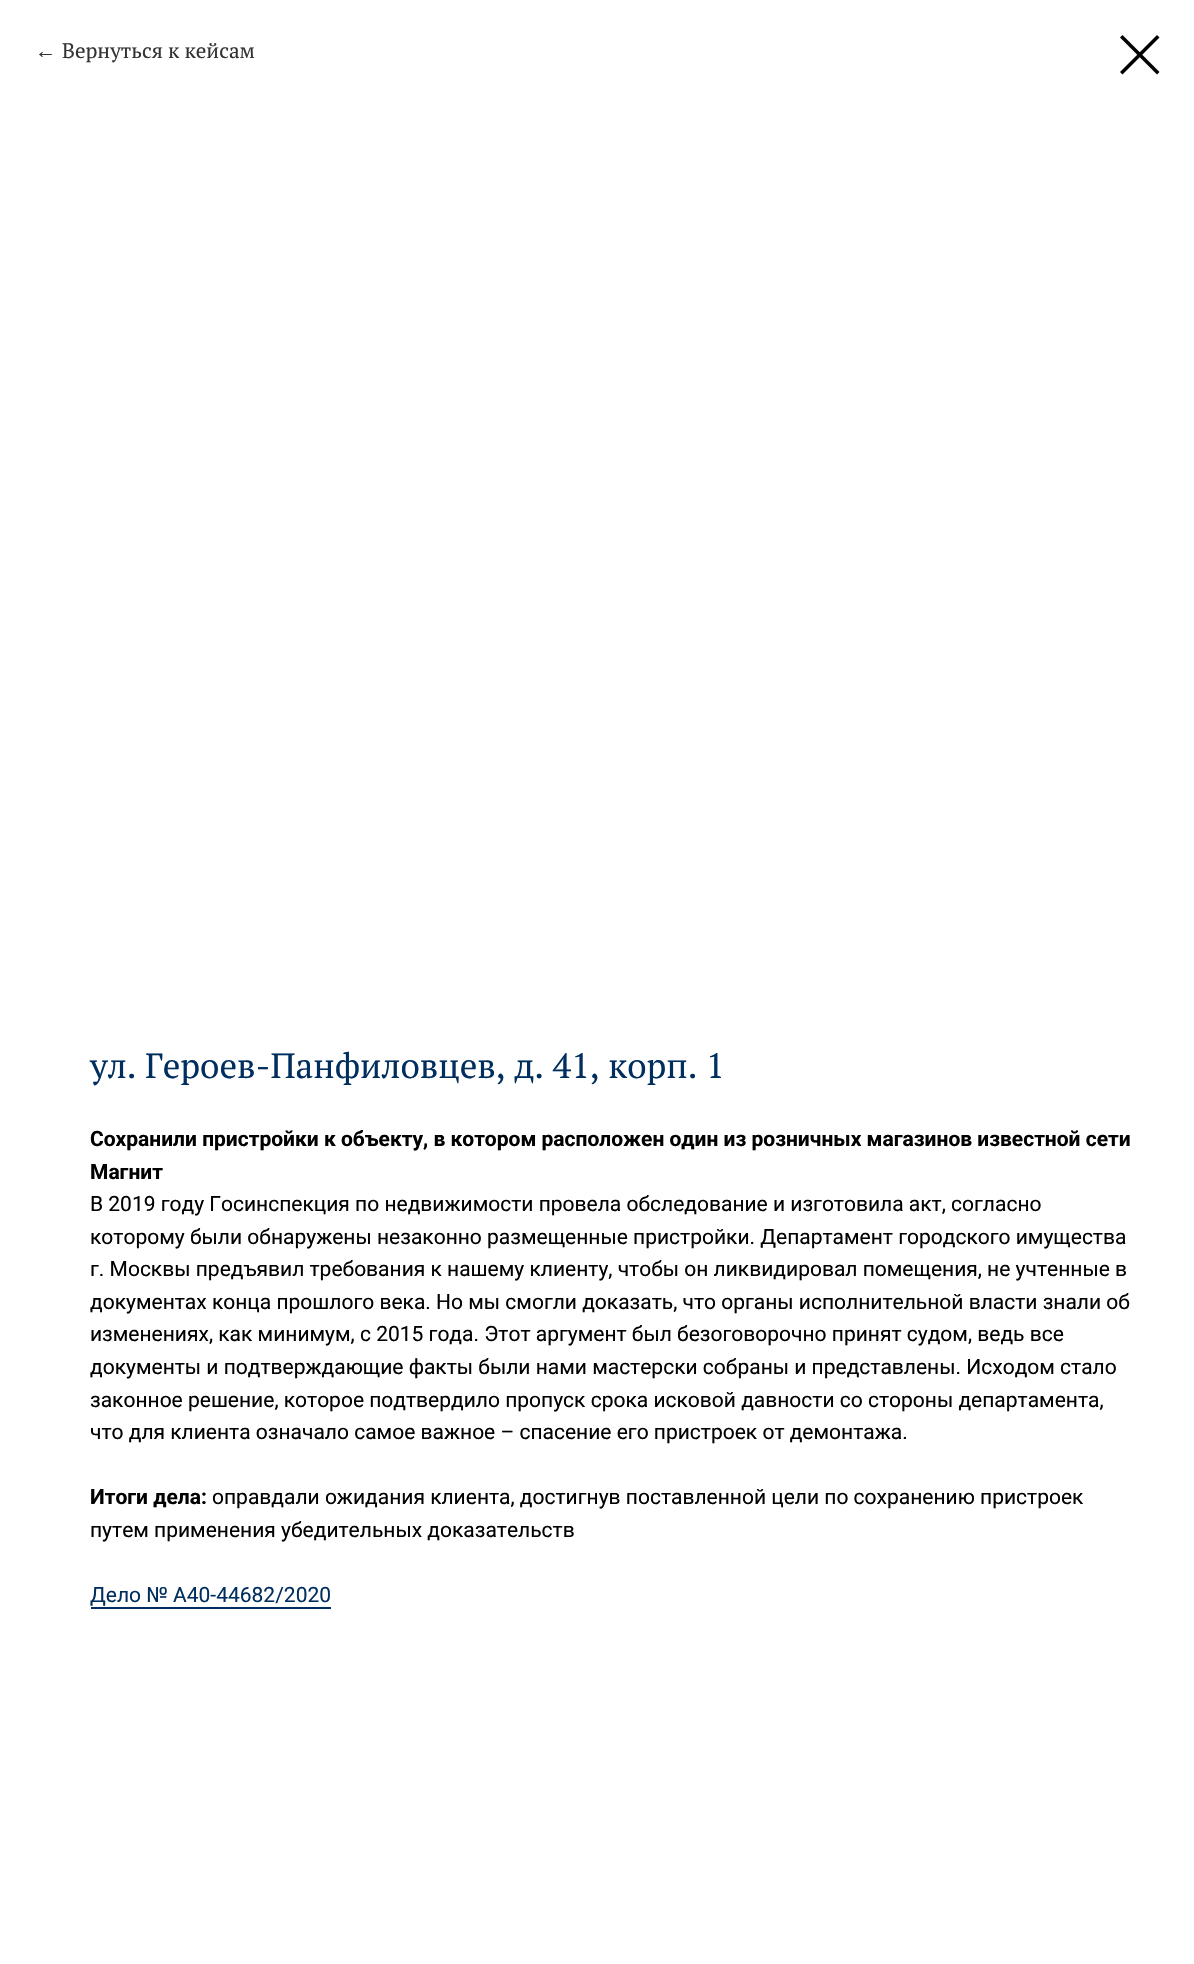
void draw(SkCanvas* canvas) {
	SkPaint paint;
	paint.setAntiAlias(true);
	auto svgPath = [&](const char* data, bool evenOdd = false) {
		SkPath result = *SkParsePath::FromSVGString(data);
		if (evenOdd) result.setFillType(SkPathFillType::kEvenOdd);
		return result;
	};
	canvas->clear(0xffffffff);
	SkFont f1(fontMgr->matchFamilyStyle("Liberation Sans", SkFontStyle::Normal()), 21);
	f1.setSubpixel(true);
	paint.setColor(0xff333333);
	canvas->drawString("←", 35, 58, f1, paint);
	SkFont f2(fontMgr->matchFamilyStyle("PT Serif", SkFontStyle::Normal()), 21);
	f2.setSubpixel(true);
	canvas->drawString("Вернуться к кейсам", 62, 58, f2, paint);
	paint.setColor(0xff000000);
	canvas->drawPath(svgPath("M1120 37.5L1122.5 35L1159.5 72L1157 74.5Z", true), paint);
	canvas->drawPath(svgPath("M1157 35L1159.5 37.5L1122.5 74.5L1120 72Z", true), paint);
	SkFont f3(fontMgr->matchFamilyStyle("PT Serif", SkFontStyle::Normal()), 35);
	f3.setSubpixel(true);
	paint.setColor(0xff002e5e);
	canvas->drawString("ул. Героев-Панфиловцев, д. 41, корп. 1", 90, 1078, f3, paint);
	SkFont f4(fontMgr->matchFamilyStyle("Roboto", SkFontStyle::Bold()), 21);
	f4.setSubpixel(true);
	paint.setColor(0xff000000);
	canvas->drawString("Сохранили пристройки к объекту, в котором расположен один из розничных магазинов известной сети", 90, 1146, f4, paint);
	canvas->drawString("Магнит", 90, 1179, f4, paint);
	SkFont f5(fontMgr->matchFamilyStyle("Roboto", SkFontStyle::Normal()), 21);
	f5.setSubpixel(true);
	canvas->drawString("В 2019 году Госинспекция по недвижимости провела обследование и изготовила акт, согласно", 90, 1211, f5, paint);
	canvas->drawString("которому были обнаружены незаконно размещенные пристройки. Департамент городского имущества", 90, 1244, f5, paint);
	canvas->drawString("г. Москвы предъявил требования к нашему клиенту, чтобы он ликвидировал помещения, не учтенные в", 90, 1276, f5, paint);
	canvas->drawString("документах конца прошлого века. Но мы смогли доказать, что органы исполнительной власти знали об", 90, 1309, f5, paint);
	canvas->drawString("изменениях, как минимум, с 2015 года. Этот аргумент был безоговорочно принят судом, ведь все", 90, 1341, f5, paint);
	canvas->drawString("документы и подтверждающие факты были нами мастерски собраны и представлены. Исходом стало", 90, 1374, f5, paint);
	canvas->drawString("законное решение, которое подтвердило пропуск срока исковой давности со стороны департамента,", 90, 1407, f5, paint);
	canvas->drawString("что для клиента означало самое важное – спасение его пристроек от демонтажа.", 90, 1439, f5, paint);
	canvas->drawString("Итоги дела:", 90, 1504, f4, paint);
	canvas->drawString("оправдали ожидания клиента, достигнув поставленной цели по сохранению пристроек", 212, 1504, f5, paint);
	canvas->drawString("путем применения убедительных доказательств", 90, 1537, f5, paint);
	paint.setColor(0xff002e5e);
	canvas->drawString("Дело № А40-44682/2020", 90, 1602, f5, paint);
	paint.setColor(0xff002d5f);
	canvas->drawRect(SkRect::MakeXYWH(91, 1607, 240, 2), paint);
}
